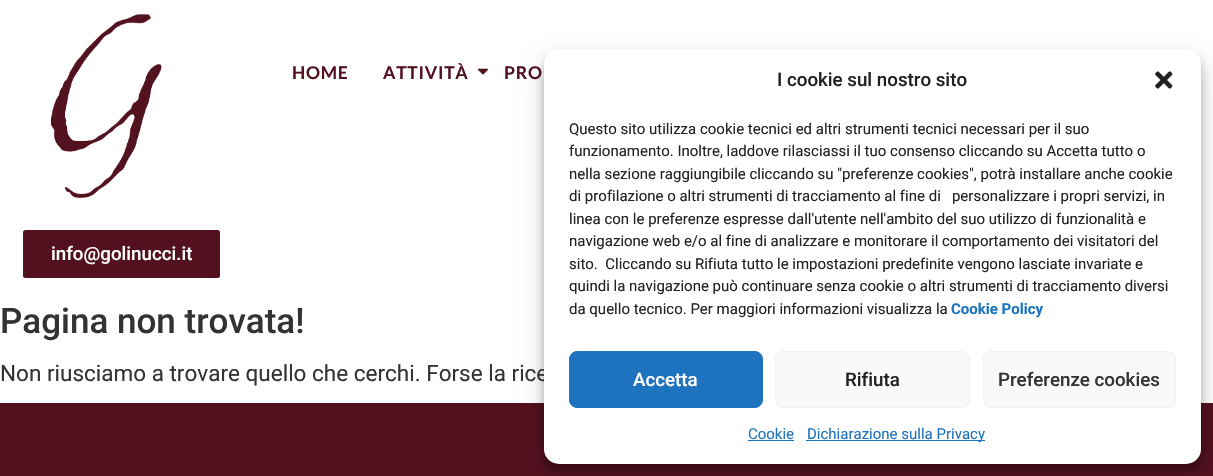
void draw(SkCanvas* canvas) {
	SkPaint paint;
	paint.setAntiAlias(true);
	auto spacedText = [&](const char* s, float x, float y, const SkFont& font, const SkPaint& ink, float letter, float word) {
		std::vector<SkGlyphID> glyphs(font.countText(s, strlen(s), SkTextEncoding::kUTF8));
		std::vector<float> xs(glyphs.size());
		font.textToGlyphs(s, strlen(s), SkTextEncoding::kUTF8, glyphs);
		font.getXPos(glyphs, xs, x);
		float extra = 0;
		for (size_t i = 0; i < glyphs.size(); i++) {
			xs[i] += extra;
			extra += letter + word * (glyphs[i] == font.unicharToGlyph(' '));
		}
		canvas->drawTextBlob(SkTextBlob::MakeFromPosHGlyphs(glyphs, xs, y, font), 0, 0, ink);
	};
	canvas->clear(0xffffffff);
	canvas->drawImageRect(SkImages::DeferredFromEncodedData(SkData::MakeFromFileName("img1.png")), SkRect::MakeXYWH(50, 14, 112, 184), SkSamplingOptions());
	SkFont f1(fontMgr->matchFamilyStyle("Lato", SkFontStyle::Bold()), 17.5);
	f1.setSubpixel(true);
	paint.setColor(0xff53111f);
	spacedText("HOME", 292, 79, f1, paint, 0.75, 0);
	spacedText("ATTIVITÀ", 383, 79, f1, paint, 0.75, 0);
	canvas->drawImageRect(SkImages::DeferredFromEncodedData(SkData::MakeFromFileName("img2.png")), SkRect::MakeXYWH(477, 68, 11, 7), SkSamplingOptions());
	spacedText("PRO", 504, 79, f1, paint, 0.75, 0);
	canvas->drawRoundRect(SkRect::MakeXYWH(23, 230, 197, 48), 2.5, 2.5, paint);
	SkFont f2(fontMgr->matchFamilyStyle("Roboto", SkFontStyle(500, SkFontStyle::kNormal_Width, SkFontStyle::kUpright_Slant)), 18.75);
	f2.setSubpixel(true);
	paint.setColor(0xffffffff);
	canvas->drawString("info@golinucci.it", 51, 260, f2, paint);
	paint.setColor(0xff53111f);
	canvas->drawRect(SkRect::MakeXYWH(0, 403, 1213, 73), paint);
	paint.setColor(0x3b000000);
	paint.setMaskFilter(SkMaskFilter::MakeBlur(kNormal_SkBlurStyle, 4));
	canvas->drawRoundRect(SkRect::MakeXYWH(544, 56, 657, 415), 15, 15, paint);
	paint.setMaskFilter(nullptr);
	paint.setColor(0x30000000);
	paint.setMaskFilter(SkMaskFilter::MakeBlur(kNormal_SkBlurStyle, 12.5));
	canvas->drawRoundRect(SkRect::MakeXYWH(544, 61, 657, 415), 15, 15, paint);
	paint.setMaskFilter(nullptr);
	SkFont f3(fontMgr->matchFamilyStyle("Roboto", SkFontStyle::Normal()), 22.5);
	f3.setSubpixel(true);
	paint.setColor(0xff333333);
	canvas->drawString("Non riusciamo a trovare quello che cerchi. Forse la rice", 0, 381, f3, paint);
	paint.setColor(0xffffffff);
	canvas->drawRoundRect(SkRect::MakeXYWH(544, 49, 657, 415), 15, 15, paint);
	paint.setColor(0xff222222);
	canvas->drawString("I cookie sul nostro sito", 777, 86, f2, paint);
	canvas->drawImageRect(SkImages::DeferredFromEncodedData(SkData::MakeFromFileName("img3.png")), SkRect::MakeXYWH(1155, 71, 18, 18), SkSamplingOptions());
	SkFont f4(fontMgr->matchFamilyStyle("Roboto", SkFontStyle::Normal()), 15);
	f4.setSubpixel(true);
	canvas->drawString("Questo sito utilizza cookie tecnici ed altri strumenti tecnici necessari per il suo", 569, 134, f4, paint);
	canvas->drawString("funzionamento. Inoltre, laddove rilasciassi il tuo consenso cliccando su Accetta tutto o", 569, 156, f4, paint);
	canvas->drawString("nella sezione raggiungibile cliccando su \"preferenze cookies\", potrà installare anche cookie", 569, 179, f4, paint);
	canvas->drawString("di profilazione o altri strumenti di tracciamento al fine di   personalizzare i propri servizi, in", 569, 201, f4, paint);
	canvas->drawString("linea con le preferenze espresse dall'utente nell'ambito del suo utilizzo di funzionalità e", 569, 224, f4, paint);
	canvas->drawString("navigazione web e/o al fine di analizzare e monitorare il comportamento dei visitatori del", 569, 246, f4, paint);
	canvas->drawString("sito.  Cliccando su Rifiuta tutto le impostazioni predefinite vengono lasciate invariate e", 569, 269, f4, paint);
	canvas->drawString("quindi la navigazione può continuare senza cookie o altri strumenti di tracciamento diversi", 569, 291, f4, paint);
	canvas->drawString("da quello tecnico. Per maggiori informazioni visualizza la", 569, 314, f4, paint);
	SkFont f5(fontMgr->matchFamilyStyle("Roboto", SkFontStyle::Bold()), 15);
	f5.setSubpixel(true);
	paint.setColor(0xff1e73be);
	canvas->drawString("Cookie Policy", 951, 314, f5, paint);
	canvas->drawRoundRect(SkRect::MakeXYWH(569.5, 351.5, 193, 56), 7.5, 7.5, paint);
	paint.setStroke(true);
	paint.setStrokeWidth(1);
	canvas->drawRoundRect(SkRect::MakeXYWH(569.5, 351.5, 193, 56), 7.5, 7.5, paint);
	paint.setStroke(false);
	paint.setColor(0xffffffff);
	canvas->drawString("Accetta", 633, 386, f2, paint);
	paint.setColor(0xfff9f9f9);
	canvas->drawRoundRect(SkRect::MakeXYWH(775.5, 351.5, 194, 56), 7.5, 7.5, paint);
	paint.setStroke(true);
	paint.setColor(0xfff2f2f2);
	canvas->drawRoundRect(SkRect::MakeXYWH(775.5, 351.5, 194, 56), 7.5, 7.5, paint);
	paint.setStroke(false);
	paint.setColor(0xff222222);
	canvas->drawString("Rifiuta", 845, 386, f2, paint);
	paint.setColor(0xfff9f9f9);
	canvas->drawRoundRect(SkRect::MakeXYWH(983.5, 351.5, 192, 56), 7.5, 7.5, paint);
	paint.setStroke(true);
	paint.setColor(0xfff2f2f2);
	canvas->drawRoundRect(SkRect::MakeXYWH(983.5, 351.5, 192, 56), 7.5, 7.5, paint);
	paint.setStroke(false);
	paint.setColor(0xff333333);
	canvas->drawString("Preferenze cookies", 998, 386, f2, paint);
	paint.setColor(0xff1e73be);
	canvas->drawString("Cookie", 748, 439, f4, paint);
	canvas->drawRect(SkRect::MakeXYWH(748, 440, 46, 1), paint);
	canvas->drawRect(SkRect::MakeXYWH(806, 440, 179, 1), paint);
	canvas->drawString("Dichiarazione sulla Privacy", 807, 439, f4, paint);
	SkFont f6(fontMgr->matchFamilyStyle("Roboto", SkFontStyle(500, SkFontStyle::kNormal_Width, SkFontStyle::kUpright_Slant)), 35);
	f6.setSubpixel(true);
	paint.setColor(0xff333333);
	canvas->drawString("Pagina non trovata!", 0, 333, f6, paint);
}
